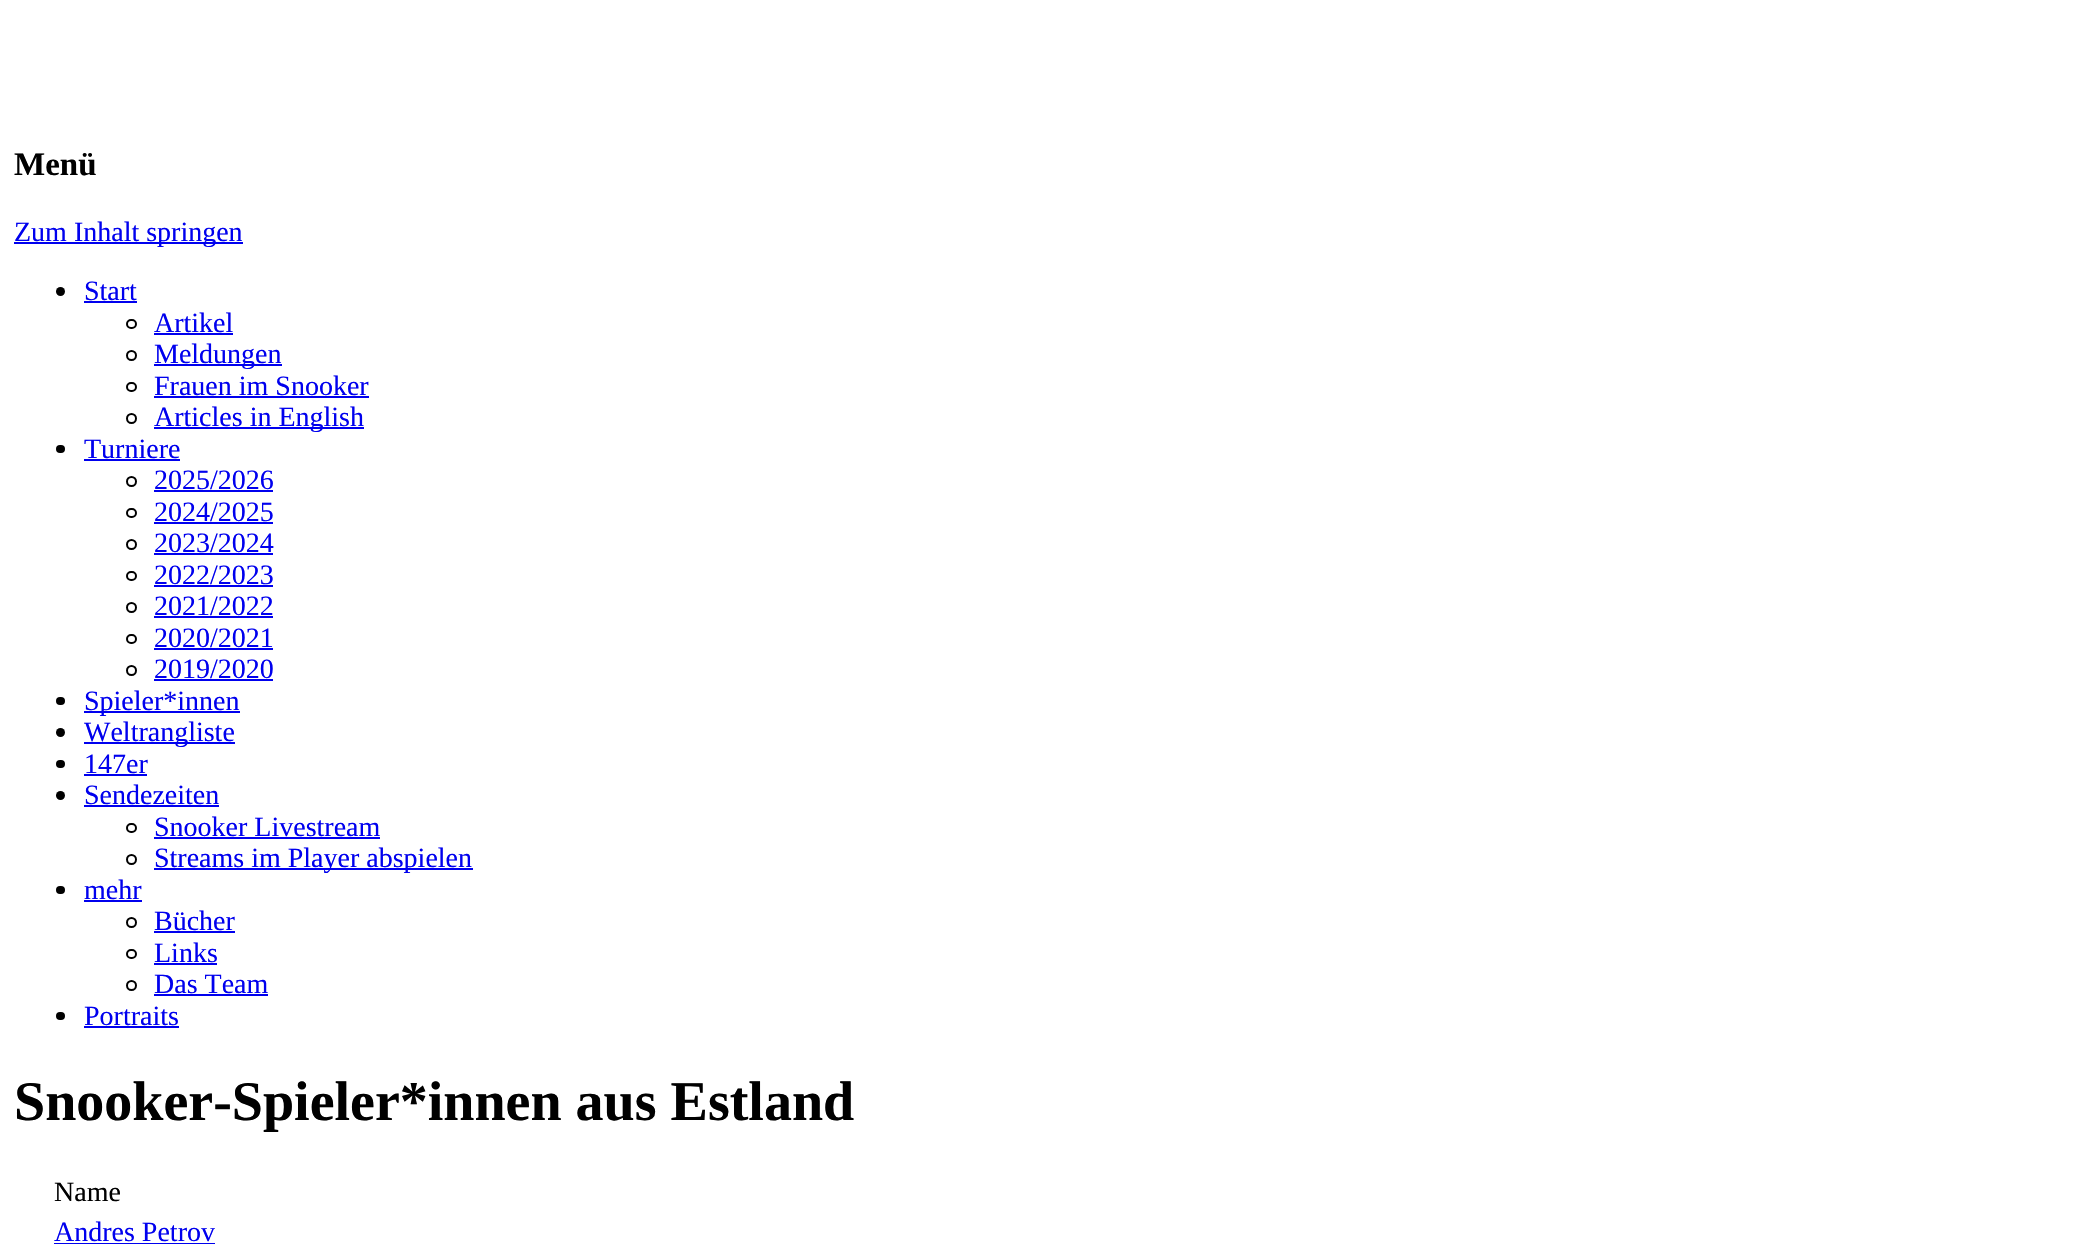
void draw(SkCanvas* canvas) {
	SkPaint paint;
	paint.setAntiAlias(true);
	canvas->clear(0xffffffff);
	SkFont f1(fontMgr->matchFamilyStyle("Liberation Serif", SkFontStyle::Bold()), 33);
	f1.setSubpixel(true);
	paint.setColor(0xff000000);
	canvas->drawString("Menü", 14, 175, f1, paint);
	paint.setColor(0xff0000ee);
	canvas->drawRect(SkRect::MakeXYWH(14, 242, 229, 2), paint);
	SkFont f2(fontMgr->matchFamilyStyle("Liberation Serif", SkFontStyle::Normal()), 28);
	f2.setSubpixel(true);
	canvas->drawString("Zum Inhalt springen", 14, 241, f2, paint);
	paint.setColor(0xff000000);
	canvas->drawCircle(60.5, 291.5, 4.5, paint);
	paint.setColor(0xff0000ee);
	canvas->drawString("Start", 84, 300, f2, paint);
	canvas->drawRect(SkRect::MakeXYWH(84, 301, 53, 2), paint);
	paint.setStroke(true);
	paint.setStrokeWidth(2);
	paint.setColor(0xff000000);
	canvas->drawRoundRect(SkRect::MakeXYWH(127, 320, 9, 8), 4, 4, paint);
	paint.setStroke(false);
	paint.setColor(0xff0000ee);
	canvas->drawString("Artikel", 154, 332, f2, paint);
	canvas->drawRect(SkRect::MakeXYWH(154, 333, 79, 2), paint);
	paint.setStroke(true);
	paint.setColor(0xff000000);
	canvas->drawCircle(131.5, 355.5, 4.5, paint);
	paint.setStroke(false);
	paint.setColor(0xff0000ee);
	canvas->drawRect(SkRect::MakeXYWH(154, 364, 128, 2), paint);
	canvas->drawString("Meldungen", 154, 363, f2, paint);
	paint.setStroke(true);
	paint.setColor(0xff000000);
	canvas->drawRoundRect(SkRect::MakeXYWH(127, 383, 9, 8), 4, 4, paint);
	paint.setStroke(false);
	paint.setColor(0xff0000ee);
	canvas->drawString("Frauen im Snooker", 154, 395, f2, paint);
	canvas->drawRect(SkRect::MakeXYWH(154, 396, 215, 2), paint);
	paint.setStroke(true);
	paint.setColor(0xff000000);
	canvas->drawCircle(131.5, 418.5, 4.5, paint);
	paint.setStroke(false);
	paint.setColor(0xff0000ee);
	canvas->drawRect(SkRect::MakeXYWH(154, 427, 210, 2), paint);
	canvas->drawString("Articles in English", 154, 426, f2, paint);
	paint.setColor(0xff000000);
	canvas->drawRoundRect(SkRect::MakeXYWH(56, 445, 9, 8), 4, 4, paint);
	paint.setColor(0xff0000ee);
	canvas->drawString("Turniere", 84, 458, f2, paint);
	canvas->drawRect(SkRect::MakeXYWH(84, 459, 96, 2), paint);
	paint.setStroke(true);
	paint.setColor(0xff000000);
	canvas->drawCircle(131.5, 481.5, 4.5, paint);
	paint.setStroke(false);
	paint.setColor(0xff0000ee);
	canvas->drawString("2025/2026", 154, 489, f2, paint);
	canvas->drawRect(SkRect::MakeXYWH(154, 490, 119, 2), paint);
	paint.setStroke(true);
	paint.setColor(0xff000000);
	canvas->drawRoundRect(SkRect::MakeXYWH(127, 509, 9, 8), 4, 4, paint);
	paint.setStroke(false);
	paint.setColor(0xff0000ee);
	canvas->drawString("2024/2025", 154, 521, f2, paint);
	canvas->drawRect(SkRect::MakeXYWH(154, 522, 119, 2), paint);
	paint.setStroke(true);
	paint.setColor(0xff000000);
	canvas->drawCircle(131.5, 544.5, 4.5, paint);
	paint.setStroke(false);
	paint.setColor(0xff0000ee);
	canvas->drawString("2023/2024", 154, 552, f2, paint);
	canvas->drawRect(SkRect::MakeXYWH(154, 553, 119, 2), paint);
	paint.setStroke(true);
	paint.setColor(0xff000000);
	canvas->drawRoundRect(SkRect::MakeXYWH(127, 572, 9, 8), 4, 4, paint);
	paint.setStroke(false);
	paint.setColor(0xff0000ee);
	canvas->drawString("2022/2023", 154, 584, f2, paint);
	canvas->drawRect(SkRect::MakeXYWH(154, 585, 119, 2), paint);
	paint.setStroke(true);
	paint.setColor(0xff000000);
	canvas->drawCircle(131.5, 607.5, 4.5, paint);
	paint.setStroke(false);
	paint.setColor(0xff0000ee);
	canvas->drawString("2021/2022", 154, 615, f2, paint);
	canvas->drawRect(SkRect::MakeXYWH(154, 616, 119, 2), paint);
	paint.setStroke(true);
	paint.setColor(0xff000000);
	canvas->drawRoundRect(SkRect::MakeXYWH(127, 635, 9, 8), 4, 4, paint);
	paint.setStroke(false);
	paint.setColor(0xff0000ee);
	canvas->drawString("2020/2021", 154, 647, f2, paint);
	canvas->drawRect(SkRect::MakeXYWH(154, 648, 119, 2), paint);
	paint.setStroke(true);
	paint.setColor(0xff000000);
	canvas->drawCircle(131.5, 670.5, 4.5, paint);
	paint.setStroke(false);
	paint.setColor(0xff0000ee);
	canvas->drawString("2019/2020", 154, 678, f2, paint);
	canvas->drawRect(SkRect::MakeXYWH(154, 679, 119, 2), paint);
	paint.setColor(0xff000000);
	canvas->drawRoundRect(SkRect::MakeXYWH(56, 697, 9, 8), 4, 4, paint);
	paint.setColor(0xff0000ee);
	canvas->drawRect(SkRect::MakeXYWH(84, 711, 156, 2), paint);
	canvas->drawString("Spieler*innen", 84, 710, f2, paint);
	paint.setColor(0xff000000);
	canvas->drawCircle(60.5, 732.5, 4.5, paint);
	paint.setColor(0xff0000ee);
	canvas->drawRect(SkRect::MakeXYWH(84, 742, 151, 2), paint);
	canvas->drawString("Weltrangliste", 84, 741, f2, paint);
	paint.setColor(0xff000000);
	canvas->drawRoundRect(SkRect::MakeXYWH(56, 760, 9, 8), 4, 4, paint);
	paint.setColor(0xff0000ee);
	canvas->drawString("147er", 84, 773, f2, paint);
	canvas->drawRect(SkRect::MakeXYWH(84, 774, 63, 2), paint);
	paint.setColor(0xff000000);
	canvas->drawCircle(60.5, 795.5, 4.5, paint);
	paint.setColor(0xff0000ee);
	canvas->drawString("Sendezeiten", 84, 804, f2, paint);
	canvas->drawRect(SkRect::MakeXYWH(84, 805, 135, 2), paint);
	paint.setStroke(true);
	paint.setColor(0xff000000);
	canvas->drawRoundRect(SkRect::MakeXYWH(127, 824, 9, 8), 4, 4, paint);
	paint.setStroke(false);
	paint.setColor(0xff0000ee);
	canvas->drawString("Snooker Livestream", 154, 836, f2, paint);
	canvas->drawRect(SkRect::MakeXYWH(154, 837, 226, 2), paint);
	paint.setStroke(true);
	paint.setColor(0xff000000);
	canvas->drawCircle(131.5, 859.5, 4.5, paint);
	paint.setStroke(false);
	paint.setColor(0xff0000ee);
	canvas->drawRect(SkRect::MakeXYWH(154, 868, 319, 2), paint);
	canvas->drawString("Streams im Player abspielen", 154, 867, f2, paint);
	paint.setColor(0xff000000);
	canvas->drawRoundRect(SkRect::MakeXYWH(56, 886, 9, 8), 4, 4, paint);
	paint.setColor(0xff0000ee);
	canvas->drawString("mehr", 84, 899, f2, paint);
	canvas->drawRect(SkRect::MakeXYWH(84, 900, 58, 2), paint);
	paint.setStroke(true);
	paint.setColor(0xff000000);
	canvas->drawCircle(131.5, 922.5, 4.5, paint);
	paint.setStroke(false);
	paint.setColor(0xff0000ee);
	canvas->drawString("Bücher", 154, 930, f2, paint);
	canvas->drawRect(SkRect::MakeXYWH(154, 931, 81, 2), paint);
	paint.setStroke(true);
	paint.setColor(0xff000000);
	canvas->drawRoundRect(SkRect::MakeXYWH(127, 950, 9, 8), 4, 4, paint);
	paint.setStroke(false);
	paint.setColor(0xff0000ee);
	canvas->drawString("Links", 154, 962, f2, paint);
	canvas->drawRect(SkRect::MakeXYWH(154, 963, 63, 2), paint);
	paint.setStroke(true);
	paint.setColor(0xff000000);
	canvas->drawCircle(131.5, 985.5, 4.5, paint);
	paint.setStroke(false);
	paint.setColor(0xff0000ee);
	canvas->drawString("Das Team", 154, 993, f2, paint);
	canvas->drawRect(SkRect::MakeXYWH(154, 994, 114, 2), paint);
	paint.setColor(0xff000000);
	canvas->drawRoundRect(SkRect::MakeXYWH(56, 1012, 9, 8), 4, 4, paint);
	paint.setColor(0xff0000ee);
	canvas->drawString("Portraits", 84, 1025, f2, paint);
	canvas->drawRect(SkRect::MakeXYWH(84, 1026, 95, 2), paint);
	SkFont f3(fontMgr->matchFamilyStyle("Liberation Serif", SkFontStyle::Bold()), 56);
	f3.setSubpixel(true);
	paint.setColor(0xff000000);
	canvas->drawString("Snooker-Spieler*innen aus Estland", 14, 1120, f3, paint);
	canvas->drawString("Name", 54, 1201, f2, paint);
	paint.setColor(0xff0000ee);
	canvas->drawString("Andres Petrov", 54, 1241, f2, paint);
	canvas->drawRect(SkRect::MakeXYWH(54, 1243, 161, 1), paint);
}
